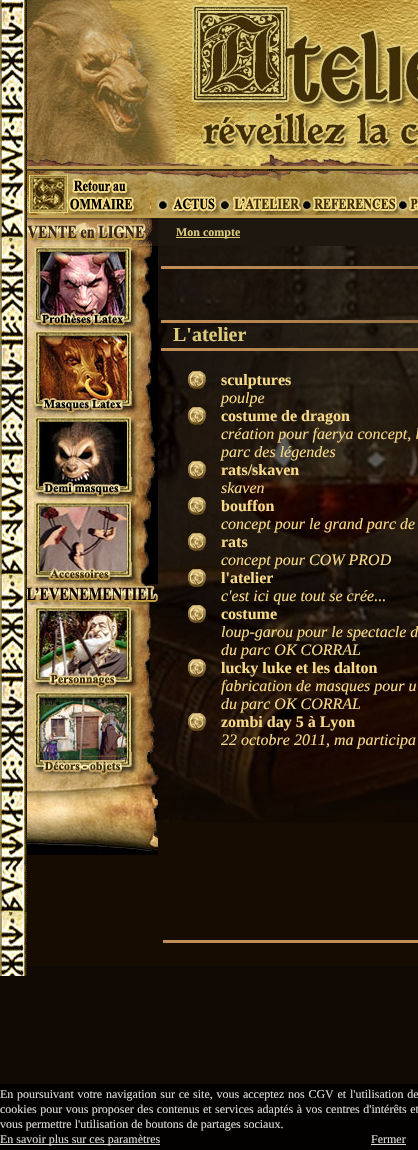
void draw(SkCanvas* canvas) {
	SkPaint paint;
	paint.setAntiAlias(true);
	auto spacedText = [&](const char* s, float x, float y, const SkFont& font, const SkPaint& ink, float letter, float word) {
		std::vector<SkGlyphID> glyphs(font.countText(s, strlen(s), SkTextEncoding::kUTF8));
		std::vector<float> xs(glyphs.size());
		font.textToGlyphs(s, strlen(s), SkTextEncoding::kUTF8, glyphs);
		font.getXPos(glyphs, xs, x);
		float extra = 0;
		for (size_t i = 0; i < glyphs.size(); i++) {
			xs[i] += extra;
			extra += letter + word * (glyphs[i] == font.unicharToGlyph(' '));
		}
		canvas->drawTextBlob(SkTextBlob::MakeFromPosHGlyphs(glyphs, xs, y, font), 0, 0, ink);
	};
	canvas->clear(0xff0f0803);
	canvas->drawImageRect(SkImages::DeferredFromEncodedData(SkData::MakeFromFileName("img1.png")), SkRect::MakeXYWH(0, 0, 27, 976), SkSamplingOptions());
	paint.setColor(0xff160c02);
	canvas->drawRect(SkRect::MakeXYWH(27, 823, 391, 143), paint);
	canvas->drawImageRect(SkImages::DeferredFromEncodedData(SkData::MakeFromFileName("img2.png")), SkRect::MakeXYWH(27, 0, 391, 166), SkSamplingOptions());
	paint.setColor(0xffbd9e50);
	canvas->drawRect(SkRect::MakeXYWH(27, 166, 391, 3), paint);
	canvas->drawImageRect(SkImages::DeferredFromEncodedData(SkData::MakeFromFileName("img3.png")), SkRect::MakeXYWH(27, 169, 131, 46), SkSamplingOptions());
	canvas->drawImageRect(SkImages::DeferredFromEncodedData(SkData::MakeFromFileName("img4.png")), SkRect::MakeXYWH(158, 169, 62, 46), SkSamplingOptions());
	canvas->drawImageRect(SkImages::DeferredFromEncodedData(SkData::MakeFromFileName("img5.png")), SkRect::MakeXYWH(220, 169, 82, 46), SkSamplingOptions());
	canvas->drawImageRect(SkImages::DeferredFromEncodedData(SkData::MakeFromFileName("img6.png")), SkRect::MakeXYWH(302, 169, 96, 46), SkSamplingOptions());
	canvas->drawImageRect(SkImages::DeferredFromEncodedData(SkData::MakeFromFileName("img7.png")), SkRect::MakeXYWH(398, 169, 20, 46), SkSamplingOptions());
	canvas->drawRect(SkRect::MakeXYWH(27, 215, 391, 3), paint);
	canvas->drawImageRect(SkImages::DeferredFromEncodedData(SkData::MakeFromFileName("img8.png")), SkRect::MakeXYWH(27, 218, 131, 28), SkSamplingOptions());
	paint.setColor(0xff1e170f);
	canvas->drawRect(SkRect::MakeXYWH(158, 218, 260, 28), paint);
	paint.setColor(0xffdcca7a);
	canvas->drawRect(SkRect::MakeXYWH(176, 237, 64, 1), paint);
	SkFont f1(fontMgr->matchFamilyStyle("Liberation Serif", SkFontStyle::Bold()), 12);
	f1.setSubpixel(true);
	canvas->drawString("Mon compte", 176, 236, f1, paint);
	canvas->drawImageRect(SkImages::DeferredFromEncodedData(SkData::MakeFromFileName("img9.png")), SkRect::MakeXYWH(27, 246, 131, 82), SkSamplingOptions());
	canvas->drawImageRect(SkImages::DeferredFromEncodedData(SkData::MakeFromFileName("img10.png")), SkRect::MakeXYWH(27, 328, 131, 86), SkSamplingOptions());
	canvas->drawImageRect(SkImages::DeferredFromEncodedData(SkData::MakeFromFileName("img11.png")), SkRect::MakeXYWH(27, 414, 131, 86), SkSamplingOptions());
	canvas->drawImageRect(SkImages::DeferredFromEncodedData(SkData::MakeFromFileName("img12.png")), SkRect::MakeXYWH(27, 500, 131, 84), SkSamplingOptions());
	canvas->drawImageRect(SkImages::DeferredFromEncodedData(SkData::MakeFromFileName("img13.png")), SkRect::MakeXYWH(27, 584, 131, 21), SkSamplingOptions());
	canvas->drawImageRect(SkImages::DeferredFromEncodedData(SkData::MakeFromFileName("img14.png")), SkRect::MakeXYWH(27, 605, 131, 84), SkSamplingOptions());
	canvas->drawImageRect(SkImages::DeferredFromEncodedData(SkData::MakeFromFileName("img15.png")), SkRect::MakeXYWH(27, 689, 131, 84), SkSamplingOptions());
	canvas->drawImageRect(SkImages::DeferredFromEncodedData(SkData::MakeFromFileName("img16.png")), SkRect::MakeXYWH(27, 773, 131, 82), SkSamplingOptions());
	canvas->drawImageRect(SkImages::DeferredFromEncodedData(SkData::MakeFromFileName("img17.png")), SkRect::MakeXYWH(158, 246, 260, 577), SkSamplingOptions());
	canvas->drawImageRect(SkImages::DeferredFromEncodedData(SkData::MakeFromFileName("img18.png")), SkRect::MakeXYWH(161, 266, 257, 3), SkSamplingOptions());
	canvas->drawImageRect(SkImages::DeferredFromEncodedData(SkData::MakeFromFileName("img18.png")), SkRect::MakeXYWH(161, 320, 257, 3), SkSamplingOptions());
	SkFont f2(fontMgr->matchFamilyStyle("Liberation Serif", SkFontStyle::Bold()), 20);
	f2.setSubpixel(true);
	canvas->drawString("L'atelier", 173, 341, f2, paint);
	canvas->drawImageRect(SkImages::DeferredFromEncodedData(SkData::MakeFromFileName("img18.png")), SkRect::MakeXYWH(161, 348, 257, 3), SkSamplingOptions());
	canvas->drawImageRect(SkImages::DeferredFromEncodedData(SkData::MakeFromFileName("img19.png")), SkRect::MakeXYWH(188, 371, 18, 18), SkSamplingOptions());
	SkFont f3(fontMgr->matchFamilyStyle("Liberation Serif", SkFontStyle::Bold()), 16);
	f3.setSubpixel(true);
	paint.setColor(0xfff6d888);
	canvas->drawString("sculptures", 221, 385, f3, paint);
	SkFont f4(fontMgr->matchFamilyStyle("Liberation Serif", SkFontStyle::Italic()), 16);
	f4.setSubpixel(true);
	canvas->drawString("poulpe", 221, 403, f4, paint);
	canvas->drawImageRect(SkImages::DeferredFromEncodedData(SkData::MakeFromFileName("img20.png")), SkRect::MakeXYWH(188, 407, 18, 18), SkSamplingOptions());
	canvas->drawString("costume de dragon", 221, 421, f3, paint);
	canvas->drawString("création pour faerya concept, l", 221, 439, f4, paint);
	canvas->drawString("parc des légendes", 221, 457, f4, paint);
	canvas->drawImageRect(SkImages::DeferredFromEncodedData(SkData::MakeFromFileName("img21.png")), SkRect::MakeXYWH(188, 461, 18, 18), SkSamplingOptions());
	canvas->drawString("rats/skaven", 221, 475, f3, paint);
	canvas->drawString("skaven", 221, 493, f4, paint);
	canvas->drawImageRect(SkImages::DeferredFromEncodedData(SkData::MakeFromFileName("img22.png")), SkRect::MakeXYWH(188, 497, 18, 18), SkSamplingOptions());
	canvas->drawString("bouffon", 221, 511, f3, paint);
	canvas->drawString("concept pour le grand parc de", 221, 529, f4, paint);
	canvas->drawImageRect(SkImages::DeferredFromEncodedData(SkData::MakeFromFileName("img23.png")), SkRect::MakeXYWH(188, 533, 18, 18), SkSamplingOptions());
	canvas->drawString("rats", 221, 547, f3, paint);
	canvas->drawString("concept pour COW PROD", 221, 565, f4, paint);
	canvas->drawImageRect(SkImages::DeferredFromEncodedData(SkData::MakeFromFileName("img24.png")), SkRect::MakeXYWH(188, 569, 18, 18), SkSamplingOptions());
	canvas->drawString("l'atelier", 221, 583, f3, paint);
	canvas->drawString("c'est ici que tout se crée...", 221, 601, f4, paint);
	canvas->drawImageRect(SkImages::DeferredFromEncodedData(SkData::MakeFromFileName("img25.png")), SkRect::MakeXYWH(188, 605, 18, 18), SkSamplingOptions());
	canvas->drawString("costume", 221, 619, f3, paint);
	canvas->drawString("loup-garou pour le spectacle d", 221, 637, f4, paint);
	canvas->drawString("du parc OK CORRAL", 221, 655, f4, paint);
	canvas->drawImageRect(SkImages::DeferredFromEncodedData(SkData::MakeFromFileName("img26.png")), SkRect::MakeXYWH(188, 659, 18, 18), SkSamplingOptions());
	canvas->drawString("lucky luke et les dalton", 221, 673, f3, paint);
	canvas->drawString("fabrication de masques pour u", 221, 691, f4, paint);
	canvas->drawString("du parc OK CORRAL", 221, 709, f4, paint);
	canvas->drawImageRect(SkImages::DeferredFromEncodedData(SkData::MakeFromFileName("img27.png")), SkRect::MakeXYWH(188, 713, 18, 18), SkSamplingOptions());
	canvas->drawString("zombi day 5 à Lyon", 221, 727, f3, paint);
	canvas->drawString("22 octobre 2011, ma participa", 221, 745, f4, paint);
	paint.setColor(0xffc18f58);
	canvas->drawRect(SkRect::MakeXYWH(163, 940, 255, 3), paint);
	paint.setColor(0xff020100);
	canvas->drawRect(SkRect::MakeXYWH(0, 1084, 418, 66), paint);
	SkFont f5(fontMgr->matchFamilyStyle("Liberation Serif", SkFontStyle::Normal()), 12);
	f5.setSubpixel(true);
	paint.setColor(0xffdbdad9);
	spacedText("En poursuivant votre navigation sur ce site, vous acceptez nos CGV et l'utilisation de", 0, 1098, f5, paint, 0, 0.75);
	spacedText("cookies pour vous proposer des contenus et services adaptés à vos centres d'intérêts et", 0, 1113, f5, paint, 0, 0.5);
	canvas->drawString("vous permettre l'utilisation de boutons de partages sociaux.", 0, 1128, f5, paint);
	canvas->drawRect(SkRect::MakeXYWH(0, 1144, 160, 1), paint);
	canvas->drawString("En savoir plus sur ces paramètres", 0, 1143, f5, paint);
	canvas->drawString("Fermer", 371, 1143, f5, paint);
	canvas->drawRect(SkRect::MakeXYWH(371, 1144, 35, 1), paint);
}
